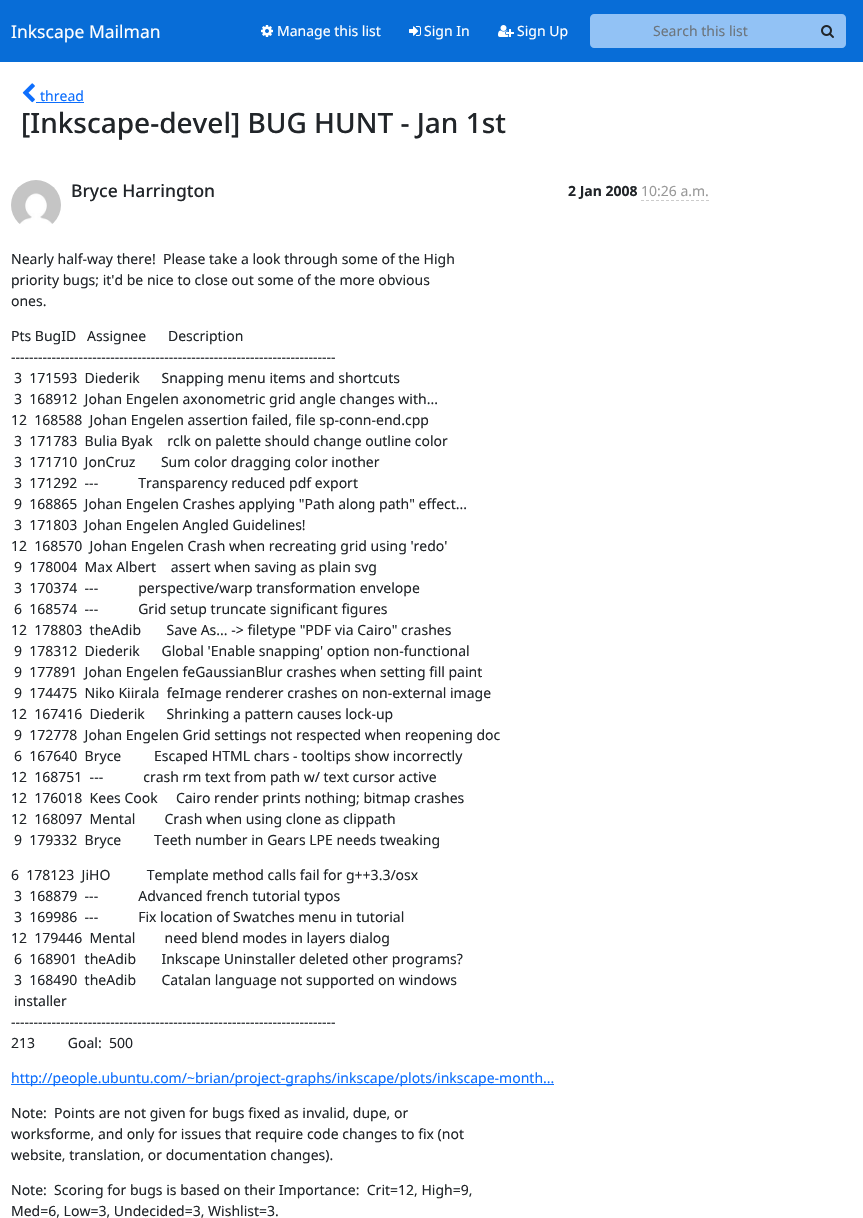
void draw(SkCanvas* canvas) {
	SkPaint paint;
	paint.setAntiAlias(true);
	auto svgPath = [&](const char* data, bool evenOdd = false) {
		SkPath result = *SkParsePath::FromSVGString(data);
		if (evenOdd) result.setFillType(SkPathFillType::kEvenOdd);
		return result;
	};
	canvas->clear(0xffffffff);
	paint.setColor(0xff086dd7);
	canvas->drawRect(SkRect::MakeXYWH(0, 0, 863, 62), paint);
	SkFont f1(fontMgr->matchFamilyStyle("Noto Sans", SkFontStyle::Normal()), 17.5);
	f1.setSubpixel(true);
	paint.setColor(0xffffffff);
	canvas->drawString("Inkscape Mailman", 11, 38, f1, paint);
	canvas->drawImageRect(SkImages::DeferredFromEncodedData(SkData::MakeFromFileName("img1.png")), SkRect::MakeXYWH(261, 25, 12, 12), SkSamplingOptions());
	SkFont f2(fontMgr->matchFamilyStyle("Noto Sans", SkFontStyle::Normal()), 14);
	f2.setSubpixel(true);
	canvas->drawString("Manage this list", 277, 36, f2, paint);
	canvas->drawImageRect(SkImages::DeferredFromEncodedData(SkData::MakeFromFileName("img2.png")), SkRect::MakeXYWH(409, 26, 12, 10), SkSamplingOptions());
	canvas->drawString("Sign In", 424, 36, f2, paint);
	canvas->drawImageRect(SkImages::DeferredFromEncodedData(SkData::MakeFromFileName("img3.png")), SkRect::MakeXYWH(498, 25, 16, 12), SkSamplingOptions());
	canvas->drawString("Sign Up", 517, 36, f2, paint);
	paint.setColor(0xff92c2f5);
	canvas->drawPath(svgPath("M594 14H811V48H594C592 48 590 46 590 44V18C590 16 592 14 594 14Z"), paint);
	paint.setColor(0xff6c757d);
	canvas->drawString("Search this list", 653, 36, f2, paint);
	paint.setColor(0xff92c2f5);
	canvas->drawPath(svgPath("M810 14H842C844 14 846 16 846 18V44C846 46 844 48 842 48H810Z"), paint);
	canvas->drawImageRect(SkImages::DeferredFromEncodedData(SkData::MakeFromFileName("img4.png")), SkRect::MakeXYWH(821, 25, 13, 13), SkSamplingOptions());
	canvas->drawImageRect(SkImages::DeferredFromEncodedData(SkData::MakeFromFileName("img5.png")), SkRect::MakeXYWH(22, 83, 13, 20), SkSamplingOptions());
	paint.setColor(0xff0d6efd);
	canvas->drawString("thread", 40, 101, f2, paint);
	canvas->drawRect(SkRect::MakeXYWH(36, 102, 48, 1), paint);
	SkFont f3(fontMgr->matchFamilyStyle("Noto Sans", SkFontStyle(500, SkFontStyle::kNormal_Width, SkFontStyle::kUpright_Slant)), 28);
	f3.setSubpixel(true);
	paint.setColor(0xff212529);
	canvas->drawString("[Inkscape-devel] BUG HUNT - Jan 1st", 21, 133, f3, paint);
	canvas->drawImageRect(SkImages::DeferredFromEncodedData(SkData::MakeFromFileName("img6.png")), SkRect::MakeXYWH(11, 180, 50, 44), SkSamplingOptions());
	SkFont f4(fontMgr->matchFamilyStyle("Noto Sans", SkFontStyle(500, SkFontStyle::kNormal_Width, SkFontStyle::kUpright_Slant)), 17.5);
	f4.setSubpixel(true);
	canvas->drawString("Bryce Harrington", 71, 197, f4, paint);
	SkFont f5(fontMgr->matchFamilyStyle("Noto Sans", SkFontStyle::Bold()), 14);
	f5.setSubpixel(true);
	canvas->drawString("2 Jan 2008", 568, 196, f5, paint);
	paint.setColor(0xff999999);
	canvas->drawString("10:26 a.m.", 641, 196, f2, paint);
	paint.setStroke(true);
	paint.setStrokeWidth(1);
	paint.setColor(0xffcccccc);
	paint.setPathEffect(SkDashPathEffect::Make({{3, 2}}, 0));
	canvas->drawPath(svgPath("M641 200.5H709"), paint);
	paint.setPathEffect(nullptr);
	paint.setStroke(false);
	paint.setColor(0xff212529);
	canvas->drawString("Nearly half-way there!  Please take a look through some of the High", 11, 264, f2, paint);
	canvas->drawString("priority bugs; it'd be nice to close out some of the more obvious", 11, 285, f2, paint);
	canvas->drawString("ones.", 11, 306, f2, paint);
	canvas->drawString("Pts BugID   Assignee      Description", 11, 341, f2, paint);
	canvas->drawString("------------------------------------------------------------------------", 11, 362, f2, paint);
	canvas->drawString("3  171593  Diederik      Snapping menu items and shortcuts", 14, 383, f2, paint);
	canvas->drawString("3  168912  Johan Engelen axonometric grid angle changes with...", 14, 404, f2, paint);
	canvas->drawString("12  168588  Johan Engelen assertion failed, file sp-conn-end.cpp", 11, 425, f2, paint);
	canvas->drawString("3  171783  Bulia Byak    rclk on palette should change outline color", 14, 446, f2, paint);
	canvas->drawString("3  171710  JonCruz       Sum color dragging color inother", 14, 467, f2, paint);
	canvas->drawString("3  171292  ---           Transparency reduced pdf export", 14, 488, f2, paint);
	canvas->drawString("9  168865  Johan Engelen Crashes applying \"Path along path\" effect...", 14, 509, f2, paint);
	canvas->drawString("3  171803  Johan Engelen Angled Guidelines!", 14, 530, f2, paint);
	canvas->drawString("12  168570  Johan Engelen Crash when recreating grid using 'redo'", 11, 551, f2, paint);
	canvas->drawString("9  178004  Max Albert    assert when saving as plain svg", 14, 572, f2, paint);
	canvas->drawString("3  170374  ---           perspective/warp transformation envelope", 14, 593, f2, paint);
	canvas->drawString("6  168574  ---           Grid setup truncate significant figures", 14, 614, f2, paint);
	canvas->drawString("12  178803  theAdib       Save As... -> filetype \"PDF via Cairo\" crashes", 11, 635, f2, paint);
	canvas->drawString("9  178312  Diederik      Global 'Enable snapping' option non-functional", 14, 656, f2, paint);
	canvas->drawString("9  177891  Johan Engelen feGaussianBlur crashes when setting fill paint", 14, 677, f2, paint);
	canvas->drawString("9  174475  Niko Kiirala  feImage renderer crashes on non-external image", 14, 698, f2, paint);
	canvas->drawString("12  167416  Diederik      Shrinking a pattern causes lock-up", 11, 719, f2, paint);
	canvas->drawString("9  172778  Johan Engelen Grid settings not respected when reopening doc", 14, 740, f2, paint);
	canvas->drawString("6  167640  Bryce         Escaped HTML chars - tooltips show incorrectly", 14, 761, f2, paint);
	canvas->drawString("12  168751  ---           crash rm text from path w/ text cursor active", 11, 782, f2, paint);
	canvas->drawString("12  176018  Kees Cook     Cairo render prints nothing; bitmap crashes", 11, 803, f2, paint);
	canvas->drawString("12  168097  Mental        Crash when using clone as clippath", 11, 824, f2, paint);
	canvas->drawString("9  179332  Bryce         Teeth number in Gears LPE needs tweaking", 14, 845, f2, paint);
	canvas->drawString("6  178123  JiHO          Template method calls fail for g++3.3/osx", 11, 880, f2, paint);
	canvas->drawString("3  168879  ---           Advanced french tutorial typos", 14, 901, f2, paint);
	canvas->drawString("3  169986  ---           Fix location of Swatches menu in tutorial", 14, 922, f2, paint);
	canvas->drawString("12  179446  Mental        need blend modes in layers dialog", 11, 943, f2, paint);
	canvas->drawString("6  168901  theAdib       Inkscape Uninstaller deleted other programs?", 14, 964, f2, paint);
	canvas->drawString("3  168490  theAdib       Catalan language not supported on windows", 14, 985, f2, paint);
	canvas->drawString("installer", 14, 1006, f2, paint);
	canvas->drawString("------------------------------------------------------------------------", 11, 1027, f2, paint);
	canvas->drawString("213         Goal:  500", 11, 1048, f2, paint);
	paint.setColor(0xff0d6efd);
	canvas->drawRect(SkRect::MakeXYWH(11, 1084, 543, 1), paint);
	canvas->drawString("http://people.ubuntu.com/~brian/project-graphs/inkscape/plots/inkscape-month...", 11, 1083, f2, paint);
	paint.setColor(0xff212529);
	canvas->drawString("Note:  Points are not given for bugs fixed as invalid, dupe, or", 11, 1118, f2, paint);
	canvas->drawString("worksforme, and only for issues that require code changes to fix (not", 11, 1139, f2, paint);
	canvas->drawString("website, translation, or documentation changes).", 11, 1160, f2, paint);
	canvas->drawString("Note:  Scoring for bugs is based on their Importance:  Crit=12, High=9,", 11, 1195, f2, paint);
	canvas->drawString("Med=6, Low=3, Undecided=3, Wishlist=3.", 11, 1216, f2, paint);
}
